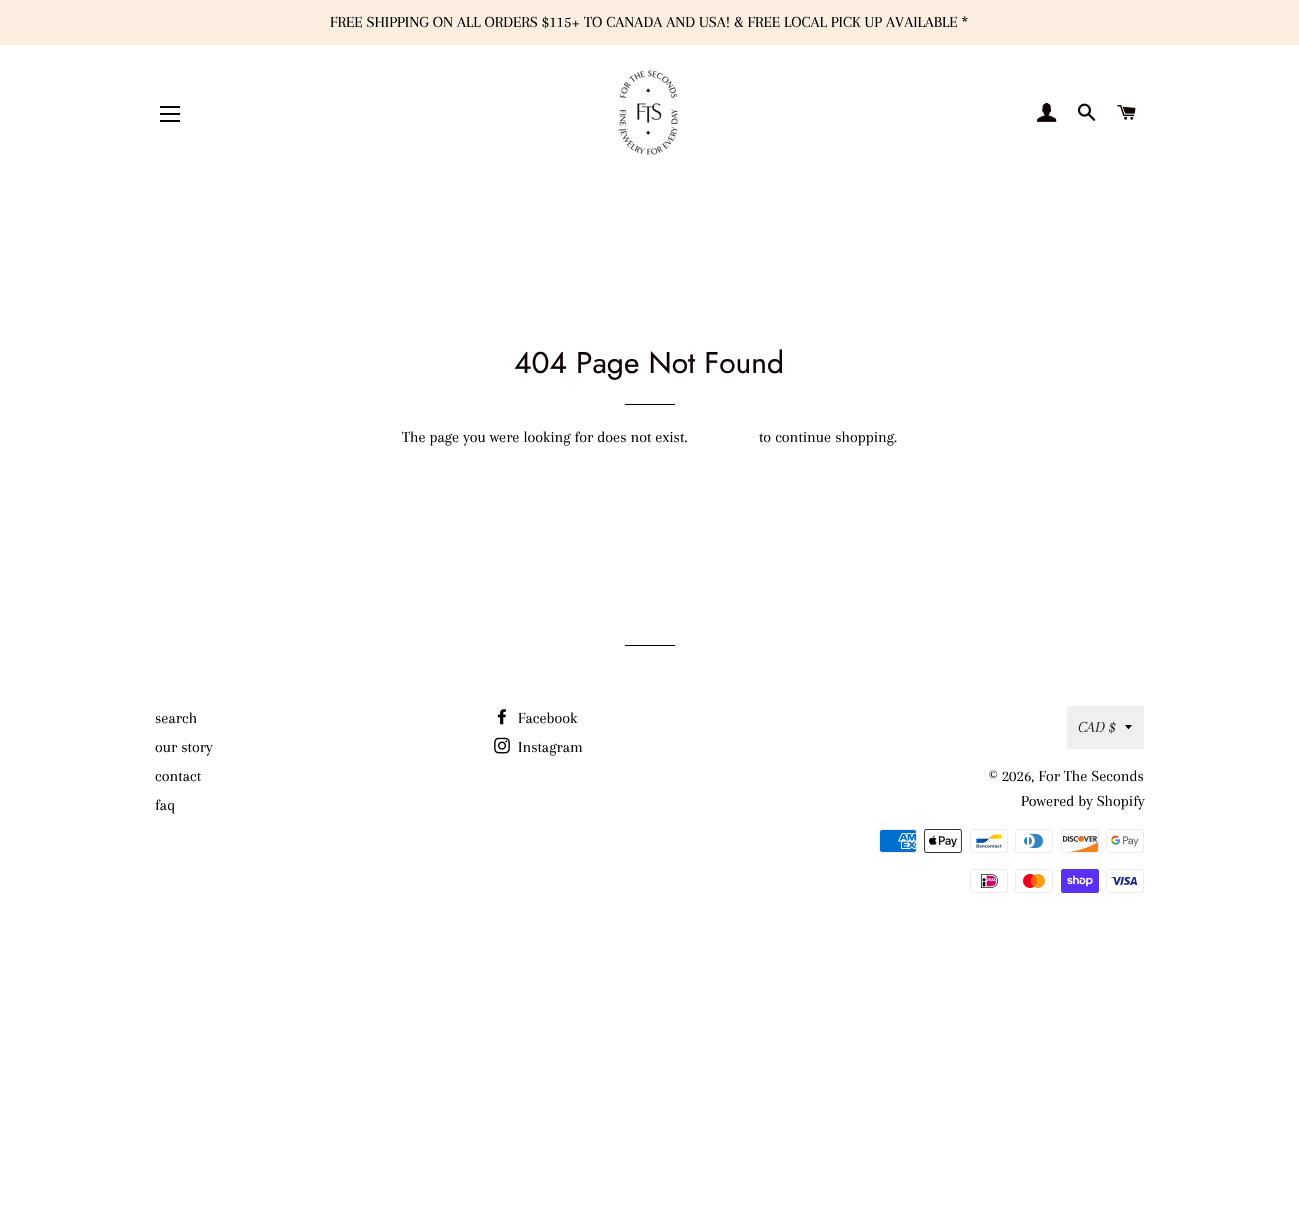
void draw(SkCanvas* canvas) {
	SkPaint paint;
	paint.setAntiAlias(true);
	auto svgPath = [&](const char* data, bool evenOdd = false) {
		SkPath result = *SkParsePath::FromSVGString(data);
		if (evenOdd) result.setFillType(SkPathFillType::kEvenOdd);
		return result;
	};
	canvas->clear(0xffffffff);
	paint.setColor(0xfffbede0);
	canvas->drawRect(SkRect::MakeXYWH(0, 0, 1299, 45), paint);
	SkFont f1(fontMgr->matchFamilyStyle("Arapey", SkFontStyle::Normal()), 16);
	f1.setSubpixel(true);
	paint.setColor(0xff000000);
	canvas->drawString("FREE SHIPPING ON ALL ORDERS $115+ TO CANADA AND USA! & FREE LOCAL PICK UP AVAILABLE *", 330, 27, f1, paint);
	paint.setColor(0xff0d0303);
	canvas->drawRect(SkRect::MakeXYWH(160, 106, 20, 2), paint);
	canvas->drawRect(SkRect::MakeXYWH(160, 113, 20, 2), paint);
	canvas->drawRect(SkRect::MakeXYWH(160, 120, 20, 2), paint);
	canvas->drawImageRect(SkImages::DeferredFromEncodedData(SkData::MakeFromFileName("img1.png")), SkRect::MakeXYWH(617, 68, 64, 88), SkSamplingOptions());
	canvas->drawImageRect(SkImages::DeferredFromEncodedData(SkData::MakeFromFileName("img2.png")), SkRect::MakeXYWH(1037, 102, 20, 20), SkSamplingOptions());
	canvas->drawImageRect(SkImages::DeferredFromEncodedData(SkData::MakeFromFileName("img3.png")), SkRect::MakeXYWH(1078, 103, 18, 18), SkSamplingOptions());
	canvas->drawImageRect(SkImages::DeferredFromEncodedData(SkData::MakeFromFileName("img4.png")), SkRect::MakeXYWH(1117, 105, 19, 15), SkSamplingOptions());
	SkFont f2(fontMgr->matchFamilyStyle("Jost", SkFontStyle::Normal()), 30);
	f2.setSubpixel(true);
	canvas->drawString("404 Page Not Found", 514, 373, f2, paint);
	paint.setColor(0xff000000);
	canvas->drawRect(SkRect::MakeXYWH(625, 404, 50, 1), paint);
	canvas->drawString("The page you were looking for does not exist.", 402, 442, f1, paint);
	canvas->drawString("to continue shopping.", 759, 442, f1, paint);
	canvas->drawRect(SkRect::MakeXYWH(625, 645, 50, 1), paint);
	canvas->drawString("search", 155, 723, f1, paint);
	canvas->drawString("our story", 155, 752, f1, paint);
	canvas->drawString("contact", 155, 781, f1, paint);
	canvas->drawString("faq", 155, 810, f1, paint);
	canvas->drawImageRect(SkImages::DeferredFromEncodedData(SkData::MakeFromFileName("img5.png")), SkRect::MakeXYWH(497, 709, 9, 16), SkSamplingOptions());
	canvas->drawString("Facebook", 518, 723, f1, paint);
	canvas->drawImageRect(SkImages::DeferredFromEncodedData(SkData::MakeFromFileName("img6.png")), SkRect::MakeXYWH(494, 737, 16, 17), SkSamplingOptions());
	canvas->drawString("Instagram", 518, 752, f1, paint);
	paint.setColor(0xffefefef);
	canvas->drawRect(SkRect::MakeXYWH(1067, 706, 77, 43), paint);
	paint.setColor(0xff000000);
	canvas->drawPath(svgPath("M1125 725C1129.5 730.5 1127.5 730.5 1132 725Z"), paint);
	SkFont f3(fontMgr->matchFamilyStyle("Arapey", SkFontStyle::Italic()), 16);
	f3.setSubpixel(true);
	paint.setColor(0xff1c1d1d);
	canvas->drawString("CAD $", 1078, 732, f3, paint);
	paint.setColor(0xff000000);
	canvas->drawString("© 2026, For The Seconds", 989, 781, f1, paint);
	canvas->drawString("Powered by Shopify", 1021, 806, f1, paint);
	canvas->drawImageRect(SkImages::DeferredFromEncodedData(SkData::MakeFromFileName("img7.png")), SkRect::MakeXYWH(879, 829, 38, 24), SkSamplingOptions());
	canvas->drawImageRect(SkImages::DeferredFromEncodedData(SkData::MakeFromFileName("img8.png")), SkRect::MakeXYWH(924, 829, 38, 24), SkSamplingOptions());
	canvas->drawImageRect(SkImages::DeferredFromEncodedData(SkData::MakeFromFileName("img9.png")), SkRect::MakeXYWH(970, 829, 38, 24), SkSamplingOptions());
	canvas->drawImageRect(SkImages::DeferredFromEncodedData(SkData::MakeFromFileName("img10.png")), SkRect::MakeXYWH(1015, 829, 38, 24), SkSamplingOptions());
	canvas->drawImageRect(SkImages::DeferredFromEncodedData(SkData::MakeFromFileName("img11.png")), SkRect::MakeXYWH(1061, 829, 38, 24), SkSamplingOptions());
	canvas->drawImageRect(SkImages::DeferredFromEncodedData(SkData::MakeFromFileName("img12.png")), SkRect::MakeXYWH(1106, 829, 38, 24), SkSamplingOptions());
	canvas->drawImageRect(SkImages::DeferredFromEncodedData(SkData::MakeFromFileName("img13.png")), SkRect::MakeXYWH(970, 869, 38, 24), SkSamplingOptions());
	canvas->drawImageRect(SkImages::DeferredFromEncodedData(SkData::MakeFromFileName("img14.png")), SkRect::MakeXYWH(1015, 869, 38, 24), SkSamplingOptions());
	canvas->drawImageRect(SkImages::DeferredFromEncodedData(SkData::MakeFromFileName("img15.png")), SkRect::MakeXYWH(1061, 869, 38, 24), SkSamplingOptions());
	canvas->drawImageRect(SkImages::DeferredFromEncodedData(SkData::MakeFromFileName("img16.png")), SkRect::MakeXYWH(1106, 869, 38, 24), SkSamplingOptions());
}
